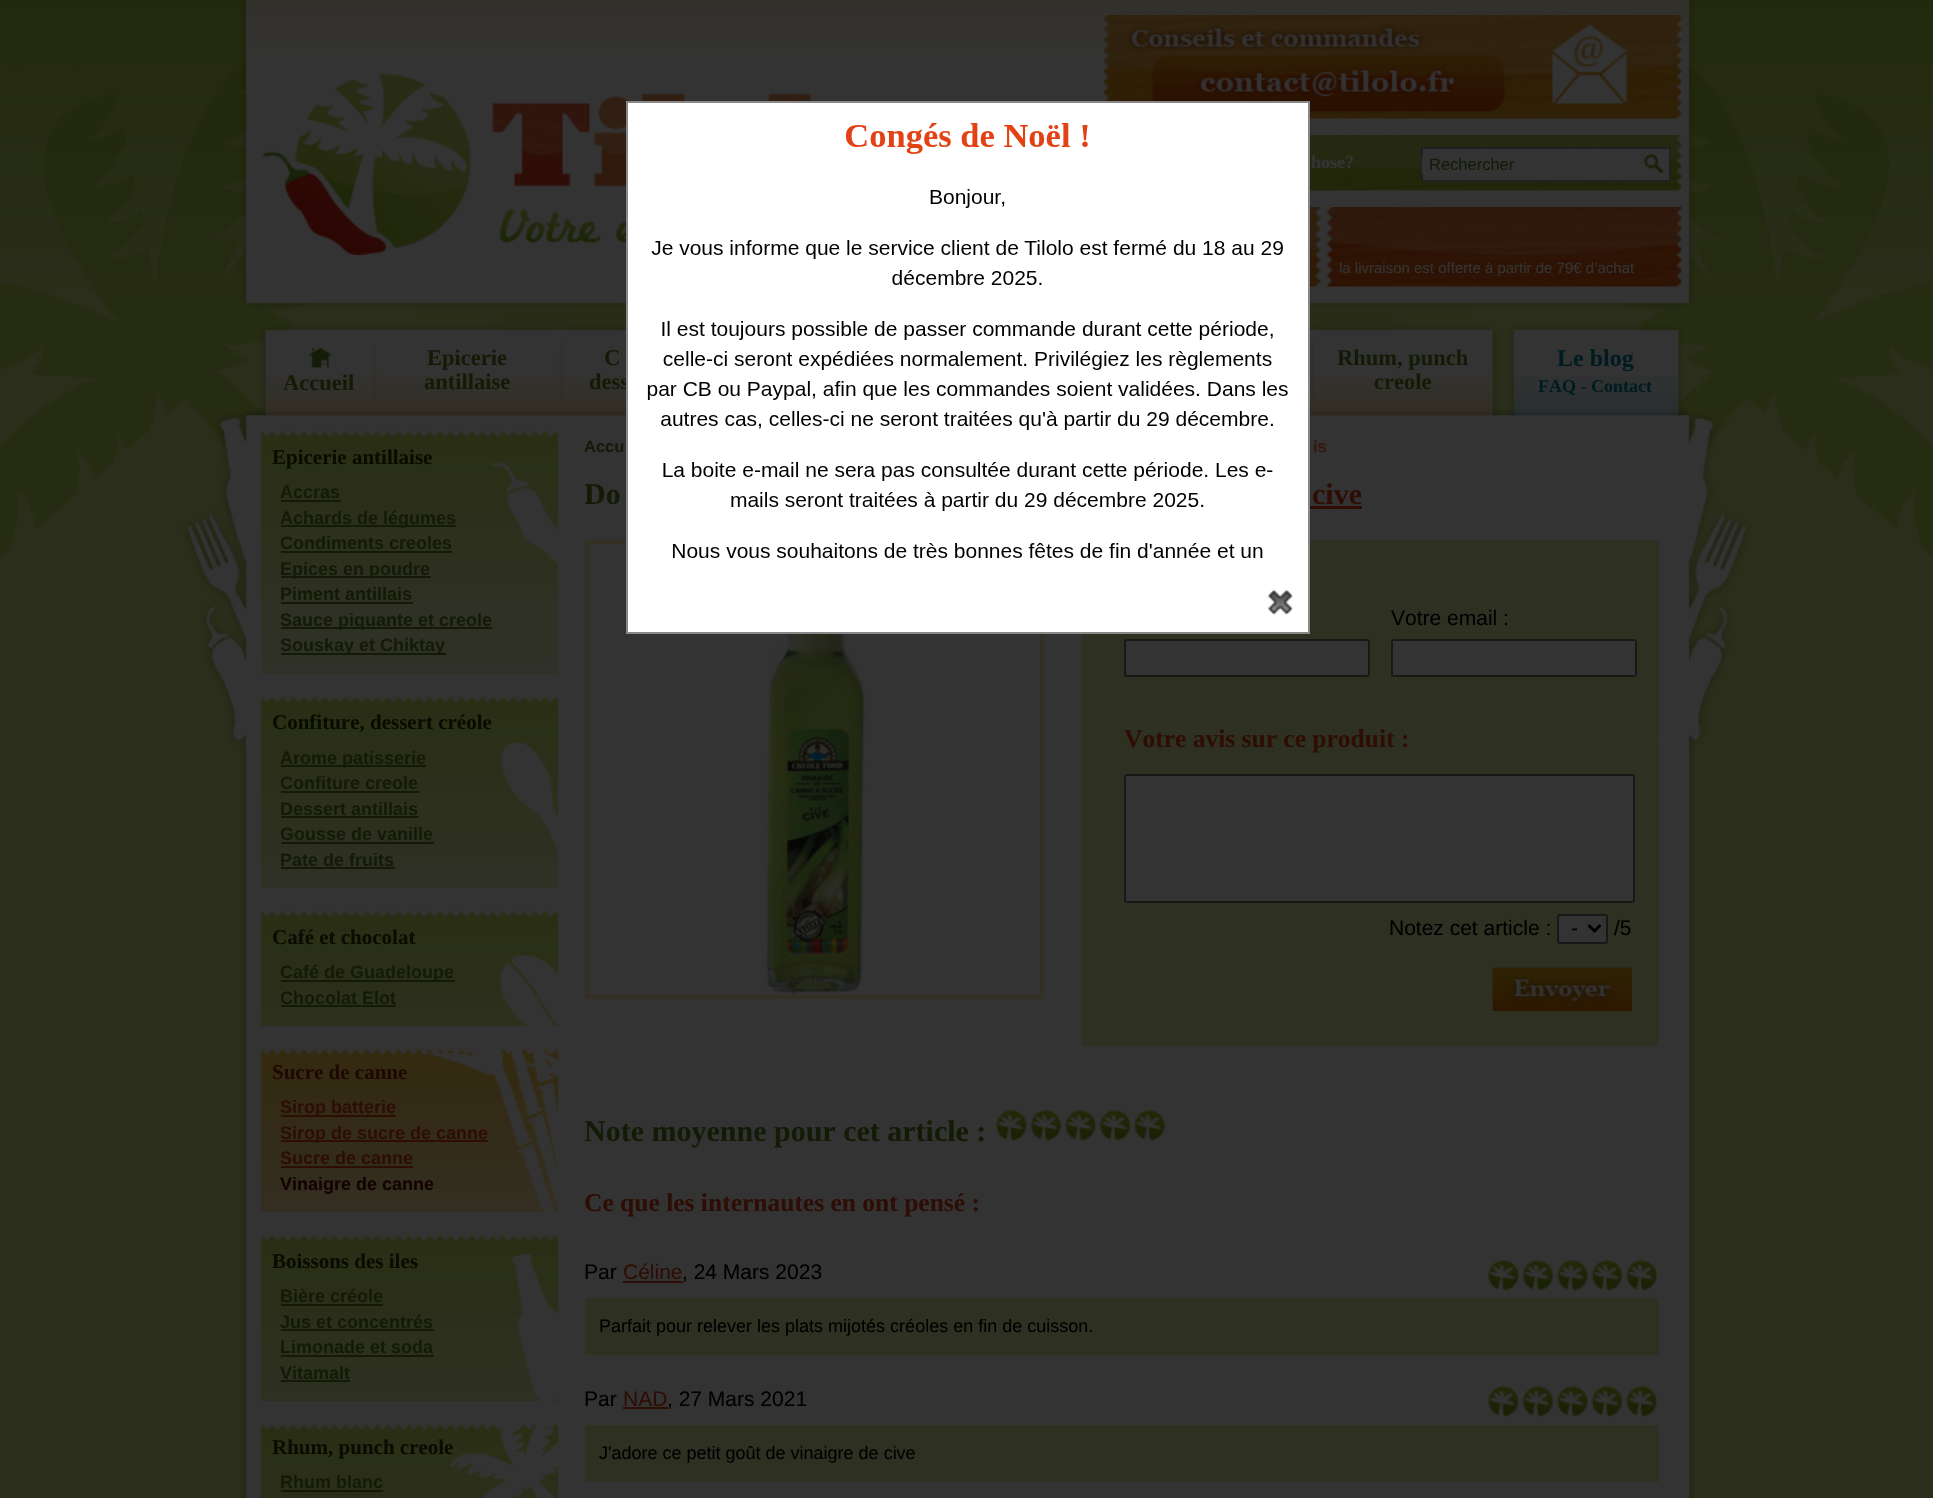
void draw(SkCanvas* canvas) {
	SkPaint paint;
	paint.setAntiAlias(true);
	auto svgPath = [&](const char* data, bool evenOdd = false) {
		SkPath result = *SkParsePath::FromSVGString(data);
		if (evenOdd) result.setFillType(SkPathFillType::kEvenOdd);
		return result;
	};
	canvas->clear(0xff2a2e1a);
	canvas->drawImageRect(SkImages::DeferredFromEncodedData(SkData::MakeFromFileName("img1.png")), SkRect::MakeXYWH(0, 0, 1933, 750), SkSamplingOptions());
	canvas->drawImageRect(SkImages::DeferredFromEncodedData(SkData::MakeFromFileName("img4.png")), SkRect::MakeXYWH(240, 0, 1455, 309), SkSamplingOptions());
	canvas->drawImageRect(SkImages::DeferredFromEncodedData(SkData::MakeFromFileName("img5.png")), SkRect::MakeXYWH(262, 73, 800, 182), SkSamplingOptions());
	canvas->drawImageRect(SkImages::DeferredFromEncodedData(SkData::MakeFromFileName("img6.png")), SkRect::MakeXYWH(1104, 15, 578, 104), SkSamplingOptions());
	paint.setColor(0xff888888);
	canvas->drawRect(SkRect::MakeXYWH(626, 101, 684, 2), paint);
	canvas->drawImageRect(SkImages::DeferredFromEncodedData(SkData::MakeFromFileName("img16.png")), SkRect::MakeXYWH(240, 415, 1455, 1083), SkSamplingOptions());
	canvas->drawImageRect(SkImages::DeferredFromEncodedData(SkData::MakeFromFileName("img17.png")), SkRect::MakeXYWH(238, 415, 1459, 325), SkSamplingOptions());
	canvas->drawImageRect(SkImages::DeferredFromEncodedData(SkData::MakeFromFileName("img11.png")), SkRect::MakeXYWH(239, 324, 1457, 92), SkSamplingOptions());
	paint.setColor(0xff2e3121);
	canvas->drawRect(SkRect::MakeXYWH(1082, 540, 577, 506), paint);
	paint.setColor(0xff888888);
	canvas->drawRect(SkRect::MakeXYWH(1308, 101, 2, 487), paint);
	SkFont f1(fontMgr->matchFamilyStyle("Liberation Serif", SkFontStyle::Bold()), 22.5);
	f1.setSubpixel(true);
	paint.setColor(0xff131b07);
	canvas->drawString("dess", 589, 389, f1, paint);
	paint.setStroke(true);
	paint.setStrokeWidth(5);
	paint.setColor(0xff332f25);
	canvas->drawRect(SkRect::MakeXYWH(587.5, 542.5, 454, 454), paint);
	canvas->drawImageRect(SkImages::DeferredFromEncodedData(SkData::MakeFromFileName("img35.png")), SkRect::MakeXYWH(589, 544, 451, 451), SkSamplingOptions());
	paint.setStroke(false);
	paint.setColor(0xff888888);
	canvas->drawRect(SkRect::MakeXYWH(626, 101, 2, 487), paint);
	paint.setColor(0xffffffff);
	canvas->drawRect(SkRect::MakeXYWH(628, 103, 680, 529), paint);
	canvas->drawImageRect(SkImages::DeferredFromEncodedData(SkData::MakeFromFileName("img2.png")), SkRect::MakeXYWH(647, 123, 641, 435), SkSamplingOptions());
	paint.setColor(0xff888888);
	canvas->drawRect(SkRect::MakeXYWH(1308, 588, 2, 45), paint);
	canvas->drawRect(SkRect::MakeXYWH(626, 632, 684, 2), paint);
	canvas->drawRect(SkRect::MakeXYWH(626, 588, 2, 45), paint);
	canvas->drawImageRect(SkImages::DeferredFromEncodedData(SkData::MakeFromFileName("img3.png")), SkRect::MakeXYWH(1267, 589, 26, 27), SkSamplingOptions());
	canvas->drawImageRect(SkImages::DeferredFromEncodedData(SkData::MakeFromFileName("img7.png")), SkRect::MakeXYWH(1310, 135, 372, 56), SkSamplingOptions());
	SkFont f2(fontMgr->matchFamilyStyle("Liberation Serif", SkFontStyle::Bold()), 18);
	f2.setSubpixel(true);
	paint.setColor(0xff333333);
	canvas->drawString("hose?", 1311, 168, f2, paint);
	canvas->drawRect(SkRect::MakeXYWH(1422, 148, 248, 33), paint);
	paint.setStroke(true);
	paint.setStrokeWidth(2);
	paint.setColor(0xff1b2221);
	canvas->drawRect(SkRect::MakeXYWH(1422, 148, 248, 33), paint);
	paint.setStroke(false);
	paint.setColor(0xff333333);
	canvas->drawRect(SkRect::MakeXYWH(1422, 156, 1, 18), paint);
	SkFont f3(fontMgr->matchFamilyStyle("Liberation Sans", SkFontStyle::Normal()), 16.5);
	f3.setSubpixel(true);
	paint.setColor(0xff131b07);
	canvas->drawString("Rechercher", 1429, 170, f3, paint);
	canvas->drawImageRect(SkImages::DeferredFromEncodedData(SkData::MakeFromFileName("img8.png")), SkRect::MakeXYWH(1644, 154, 20, 20), SkSamplingOptions());
	canvas->drawImageRect(SkImages::DeferredFromEncodedData(SkData::MakeFromFileName("img9.png")), SkRect::MakeXYWH(1310, 207, 12, 80), SkSamplingOptions());
	canvas->drawImageRect(SkImages::DeferredFromEncodedData(SkData::MakeFromFileName("img10.png")), SkRect::MakeXYWH(1326, 207, 356, 80), SkSamplingOptions());
	SkFont f4(fontMgr->matchFamilyStyle("Liberation Sans", SkFontStyle::Normal()), 15);
	f4.setSubpixel(true);
	paint.setColor(0xff333333);
	canvas->drawString("la livraison est offerte à partir de 79€ d’achat", 1339, 273, f4, paint);
	canvas->drawImageRect(SkImages::DeferredFromEncodedData(SkData::MakeFromFileName("img12.png")), SkRect::MakeXYWH(308, 348, 24, 20), SkSamplingOptions());
	paint.setColor(0xff131b07);
	canvas->drawString("Accueil", 283, 390, f1, paint);
	canvas->drawImageRect(SkImages::DeferredFromEncodedData(SkData::MakeFromFileName("img13.png")), SkRect::MakeXYWH(370, 330, 7, 76), SkSamplingOptions());
	canvas->drawString("Epicerie", 427, 365, f1, paint);
	canvas->drawString("antillaise", 424, 389, f1, paint);
	canvas->drawImageRect(SkImages::DeferredFromEncodedData(SkData::MakeFromFileName("img14.png")), SkRect::MakeXYWH(558, 330, 6, 76), SkSamplingOptions());
	canvas->drawString("C", 604, 365, f1, paint);
	canvas->drawImageRect(SkImages::DeferredFromEncodedData(SkData::MakeFromFileName("img15.png")), SkRect::MakeXYWH(1310, 330, 4, 76), SkSamplingOptions());
	canvas->drawString("Rhum, punch", 1337, 365, f1, paint);
	canvas->drawString("creole", 1374, 389, f1, paint);
	SkFont f5(fontMgr->matchFamilyStyle("Liberation Serif", SkFontStyle::Bold()), 24);
	f5.setSubpixel(true);
	paint.setColor(0xff001c20);
	canvas->drawString("Le blog", 1557, 366, f5, paint);
	canvas->drawString("FAQ - Contact", 1538, 392, f2, paint);
	paint.setColor(0xff303128);
	canvas->drawRect(SkRect::MakeXYWH(261, 662, 297, 12), paint);
	canvas->drawImageRect(SkImages::DeferredFromEncodedData(SkData::MakeFromFileName("img18.png")), SkRect::MakeXYWH(261, 430, 297, 232), SkSamplingOptions());
	canvas->drawImageRect(SkImages::DeferredFromEncodedData(SkData::MakeFromFileName("img19.png")), SkRect::MakeXYWH(261, 430, 297, 7), SkSamplingOptions());
	canvas->drawImageRect(SkImages::DeferredFromEncodedData(SkData::MakeFromFileName("img20.png")), SkRect::MakeXYWH(490, 461, 68, 102), SkSamplingOptions());
	SkFont f6(fontMgr->matchFamilyStyle("Liberation Serif", SkFontStyle::Bold()), 21);
	f6.setSubpixel(true);
	paint.setColor(0xff080c01);
	canvas->drawString("Epicerie antillaise", 272, 464, f6, paint);
	SkFont f7(fontMgr->matchFamilyStyle("Liberation Sans", SkFontStyle::Bold()), 18);
	f7.setSubpixel(true);
	paint.setColor(0xff131b07);
	canvas->drawString("Accras", 280, 498, f7, paint);
	canvas->drawRect(SkRect::MakeXYWH(281, 500, 60, 2), paint);
	canvas->drawRect(SkRect::MakeXYWH(281, 525, 175, 2), paint);
	canvas->drawString("Achards de légumes", 280, 524, f7, paint);
	canvas->drawString("Condiments creoles", 280, 549, f7, paint);
	canvas->drawRect(SkRect::MakeXYWH(281, 551, 171, 2), paint);
	canvas->drawRect(SkRect::MakeXYWH(281, 576, 150, 2), paint);
	canvas->drawString("Epices en poudre", 280, 575, f7, paint);
	canvas->drawString("Piment antillais", 280, 600, f7, paint);
	canvas->drawRect(SkRect::MakeXYWH(281, 602, 132, 2), paint);
	canvas->drawRect(SkRect::MakeXYWH(281, 627, 211, 2), paint);
	canvas->drawString("Sauce piquante et creole", 280, 626, f7, paint);
	canvas->drawRect(SkRect::MakeXYWH(281, 653, 165, 2), paint);
	canvas->drawString("Souskay et Chiktay", 280, 651, f7, paint);
	canvas->drawImageRect(SkImages::DeferredFromEncodedData(SkData::MakeFromFileName("img21.png")), SkRect::MakeXYWH(261, 702, 297, 186), SkSamplingOptions());
	canvas->drawImageRect(SkImages::DeferredFromEncodedData(SkData::MakeFromFileName("img22.png")), SkRect::MakeXYWH(261, 696, 297, 6), SkSamplingOptions());
	canvas->drawImageRect(SkImages::DeferredFromEncodedData(SkData::MakeFromFileName("img23.png")), SkRect::MakeXYWH(501, 742, 57, 109), SkSamplingOptions());
	paint.setColor(0xff080c01);
	canvas->drawString("Confiture, dessert créole", 272, 729, f6, paint);
	paint.setColor(0xff131b07);
	canvas->drawRect(SkRect::MakeXYWH(281, 765, 145, 2), paint);
	canvas->drawString("Arome patisserie", 280, 764, f7, paint);
	canvas->drawString("Confiture creole", 280, 789, f7, paint);
	canvas->drawRect(SkRect::MakeXYWH(281, 791, 138, 2), paint);
	canvas->drawString("Dessert antillais", 280, 815, f7, paint);
	canvas->drawRect(SkRect::MakeXYWH(281, 816, 138, 2), paint);
	canvas->drawString("Gousse de vanille", 280, 840, f7, paint);
	canvas->drawRect(SkRect::MakeXYWH(281, 842, 153, 2), paint);
	canvas->drawString("Pate de fruits", 280, 866, f7, paint);
	canvas->drawRect(SkRect::MakeXYWH(281, 867, 114, 2), paint);
	canvas->drawImageRect(SkImages::DeferredFromEncodedData(SkData::MakeFromFileName("img24.png")), SkRect::MakeXYWH(261, 910, 297, 116), SkSamplingOptions());
	canvas->drawImageRect(SkImages::DeferredFromEncodedData(SkData::MakeFromFileName("img25.png")), SkRect::MakeXYWH(261, 910, 297, 7), SkSamplingOptions());
	canvas->drawImageRect(SkImages::DeferredFromEncodedData(SkData::MakeFromFileName("img26.png")), SkRect::MakeXYWH(501, 955, 57, 71), SkSamplingOptions());
	paint.setColor(0xff080c01);
	canvas->drawString("Café et chocolat", 272, 944, f6, paint);
	paint.setColor(0xff131b07);
	canvas->drawRect(SkRect::MakeXYWH(281, 980, 174, 2), paint);
	canvas->drawString("Café de Guadeloupe", 280, 978, f7, paint);
	canvas->drawString("Chocolat Elot", 280, 1004, f7, paint);
	canvas->drawRect(SkRect::MakeXYWH(281, 1005, 115, 2), paint);
	canvas->drawImageRect(SkImages::DeferredFromEncodedData(SkData::MakeFromFileName("img27.png")), SkRect::MakeXYWH(261, 1048, 297, 164), SkSamplingOptions());
	canvas->drawImageRect(SkImages::DeferredFromEncodedData(SkData::MakeFromFileName("img28.png")), SkRect::MakeXYWH(261, 1048, 297, 7), SkSamplingOptions());
	canvas->drawImageRect(SkImages::DeferredFromEncodedData(SkData::MakeFromFileName("img29.png")), SkRect::MakeXYWH(420, 1048, 138, 164), SkSamplingOptions());
	paint.setColor(0xff1e0802);
	canvas->drawString("Sucre de canne", 272, 1079, f6, paint);
	paint.setColor(0xff2d0d04);
	canvas->drawRect(SkRect::MakeXYWH(281, 1115, 115, 2), paint);
	canvas->drawString("Sirop batterie", 280, 1113, f7, paint);
	canvas->drawRect(SkRect::MakeXYWH(281, 1140, 207, 2), paint);
	canvas->drawString("Sirop de sucre de canne", 280, 1139, f7, paint);
	canvas->drawString("Sucre de canne", 280, 1164, f7, paint);
	canvas->drawRect(SkRect::MakeXYWH(281, 1166, 132, 2), paint);
	paint.setColor(0xff140202);
	canvas->drawString("Vinaigre de canne", 280, 1190, f7, paint);
	canvas->drawImageRect(SkImages::DeferredFromEncodedData(SkData::MakeFromFileName("img30.png")), SkRect::MakeXYWH(261, 1234, 297, 167), SkSamplingOptions());
	canvas->drawImageRect(SkImages::DeferredFromEncodedData(SkData::MakeFromFileName("img19.png")), SkRect::MakeXYWH(261, 1234, 297, 7), SkSamplingOptions());
	canvas->drawImageRect(SkImages::DeferredFromEncodedData(SkData::MakeFromFileName("img31.png")), SkRect::MakeXYWH(511, 1252, 47, 149), SkSamplingOptions());
	paint.setColor(0xff080c01);
	canvas->drawString("Boissons des iles", 272, 1268, f6, paint);
	paint.setColor(0xff131b07);
	canvas->drawString("Bière créole", 280, 1302, f7, paint);
	canvas->drawRect(SkRect::MakeXYWH(281, 1304, 102, 2), paint);
	canvas->drawString("Jus et concentrés", 280, 1328, f7, paint);
	canvas->drawRect(SkRect::MakeXYWH(281, 1329, 153, 2), paint);
	canvas->drawString("Limonade et soda", 280, 1353, f7, paint);
	canvas->drawRect(SkRect::MakeXYWH(281, 1355, 153, 2), paint);
	canvas->drawString("Vitamalt", 280, 1379, f7, paint);
	canvas->drawRect(SkRect::MakeXYWH(281, 1380, 69, 2), paint);
	canvas->drawImageRect(SkImages::DeferredFromEncodedData(SkData::MakeFromFileName("img32.png")), SkRect::MakeXYWH(261, 1423, 297, 75), SkSamplingOptions());
	canvas->drawImageRect(SkImages::DeferredFromEncodedData(SkData::MakeFromFileName("img33.png")), SkRect::MakeXYWH(261, 1423, 297, 7), SkSamplingOptions());
	canvas->drawImageRect(SkImages::DeferredFromEncodedData(SkData::MakeFromFileName("img34.png")), SkRect::MakeXYWH(450, 1423, 108, 75), SkSamplingOptions());
	paint.setColor(0xff080c01);
	canvas->drawString("Rhum, punch creole", 272, 1454, f6, paint);
	paint.setColor(0xff131b07);
	canvas->drawString("Rhum blanc", 280, 1488, f7, paint);
	canvas->drawRect(SkRect::MakeXYWH(281, 1490, 102, 2), paint);
	SkFont f8(fontMgr->matchFamilyStyle("Liberation Sans", SkFontStyle::Bold()), 16.5);
	f8.setSubpixel(true);
	canvas->drawString("Accu", 584, 452, f8, paint);
	paint.setColor(0xff33170f);
	canvas->drawString("is", 1313, 452, f8, paint);
	canvas->save();
	canvas->clipRect(SkRect::MakeXYWH(585, 431, 1089, 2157));
	SkFont f9(fontMgr->matchFamilyStyle("Liberation Serif", SkFontStyle::Bold()), 30);
	f9.setSubpixel(true);
	paint.setColor(0xff131b07);
	canvas->drawString("Do", 584, 504, f9, paint);
	canvas->restore();
	paint.setColor(0xff2d0d04);
	canvas->drawString("cive", 1312, 504, f9, paint);
	canvas->drawRect(SkRect::MakeXYWH(1310, 506, 52, 3), paint);
	SkFont f10(fontMgr->matchFamilyStyle("Liberation Sans", SkFontStyle::Normal()), 21);
	f10.setSubpixel(true);
	paint.setColor(0xff000000);
	canvas->drawString("Votre email :", 1391, 625, f10, paint);
	paint.setColor(0xff333333);
	canvas->drawRoundRect(SkRect::MakeXYWH(1392, 640, 244, 36), 2, 2, paint);
	paint.setStroke(true);
	paint.setColor(0xff181818);
	canvas->drawRoundRect(SkRect::MakeXYWH(1392, 640, 244, 36), 2, 2, paint);
	paint.setStroke(false);
	paint.setColor(0xff333333);
	canvas->drawRoundRect(SkRect::MakeXYWH(1125, 640, 244, 36), 2, 2, paint);
	paint.setStroke(true);
	paint.setColor(0xff181818);
	canvas->drawRoundRect(SkRect::MakeXYWH(1125, 640, 244, 36), 2, 2, paint);
	SkFont f11(fontMgr->matchFamilyStyle("Liberation Serif", SkFontStyle::Bold()), 25.5);
	f11.setSubpixel(true);
	paint.setStroke(false);
	paint.setColor(0xff2d0d04);
	canvas->drawString("Votre avis sur ce produit :", 1124, 747, f11, paint);
	paint.setColor(0xff333333);
	canvas->drawRoundRect(SkRect::MakeXYWH(1125, 775, 509, 127), 2, 2, paint);
	paint.setStroke(true);
	paint.setColor(0xff181818);
	canvas->drawRoundRect(SkRect::MakeXYWH(1125, 775, 509, 127), 2, 2, paint);
	paint.setStroke(false);
	paint.setColor(0xff000000);
	canvas->drawString("Notez cet article :", 1389, 935, f10, paint);
	paint.setColor(0xff333333);
	canvas->drawRoundRect(SkRect::MakeXYWH(1558, 915, 49, 28), 2, 2, paint);
	paint.setStroke(true);
	paint.setColor(0xff181818);
	canvas->drawRoundRect(SkRect::MakeXYWH(1558, 915, 49, 28), 2, 2, paint);
	paint.setStrokeWidth(3);
	paint.setColor(0xff000000);
	canvas->drawPath(svgPath("M1588.5 925L1594.5 931L1600.5 925"), paint);
	paint.setStroke(false);
	canvas->drawString("-", 1571, 935, f10, paint);
	canvas->drawString("/5", 1614, 935, f10, paint);
	canvas->drawImageRect(SkImages::DeferredFromEncodedData(SkData::MakeFromFileName("img36.png")), SkRect::MakeXYWH(1492, 967, 140, 44), SkSamplingOptions());
	canvas->save();
	canvas->clipRect(SkRect::MakeXYWH(585, 431, 1089, 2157));
	paint.setColor(0xff131b07);
	canvas->drawString("Note moyenne pour cet article :", 584, 1141, f9, paint);
	canvas->restore();
	canvas->drawImageRect(SkImages::DeferredFromEncodedData(SkData::MakeFromFileName("img37.png")), SkRect::MakeXYWH(995, 1109, 171, 32), SkSamplingOptions());
	paint.setColor(0xff2d0d04);
	canvas->drawString("Ce que les internautes en ont pensé :", 584, 1211, f11, paint);
	paint.setColor(0xff000000);
	canvas->drawString("Par", 584, 1279, f10, paint);
	paint.setColor(0xff2d0d04);
	canvas->drawString("Céline", 623, 1279, f10, paint);
	canvas->drawRect(SkRect::MakeXYWH(623, 1281, 60, 2), paint);
	paint.setColor(0xff000000);
	canvas->drawString(", 24 Mars 2023", 682, 1279, f10, paint);
	canvas->drawImageRect(SkImages::DeferredFromEncodedData(SkData::MakeFromFileName("img38.png")), SkRect::MakeXYWH(1487, 1259, 171, 32), SkSamplingOptions());
	paint.setColor(0xff2e3121);
	canvas->drawRect(SkRect::MakeXYWH(585, 1298, 1074, 57), paint);
	SkFont f12(fontMgr->matchFamilyStyle("Liberation Sans", SkFontStyle::Normal()), 18);
	f12.setSubpixel(true);
	paint.setColor(0xff000000);
	canvas->drawString("Parfait pour relever les plats mijotés créoles en fin de cuisson.", 599, 1332, f12, paint);
	canvas->drawString("Par", 584, 1406, f10, paint);
	paint.setColor(0xff2d0d04);
	canvas->drawString("NAD", 623, 1406, f10, paint);
	canvas->drawRect(SkRect::MakeXYWH(623, 1407, 45, 2), paint);
	paint.setColor(0xff000000);
	canvas->drawString(", 27 Mars 2021", 667, 1406, f10, paint);
	canvas->drawImageRect(SkImages::DeferredFromEncodedData(SkData::MakeFromFileName("img38.png")), SkRect::MakeXYWH(1487, 1385, 171, 32), SkSamplingOptions());
	paint.setColor(0xff2e3121);
	canvas->drawRect(SkRect::MakeXYWH(585, 1425, 1074, 57), paint);
	paint.setColor(0xff000000);
	canvas->drawString("J'adore ce petit goût de vinaigre de cive", 599, 1459, f12, paint);
}
